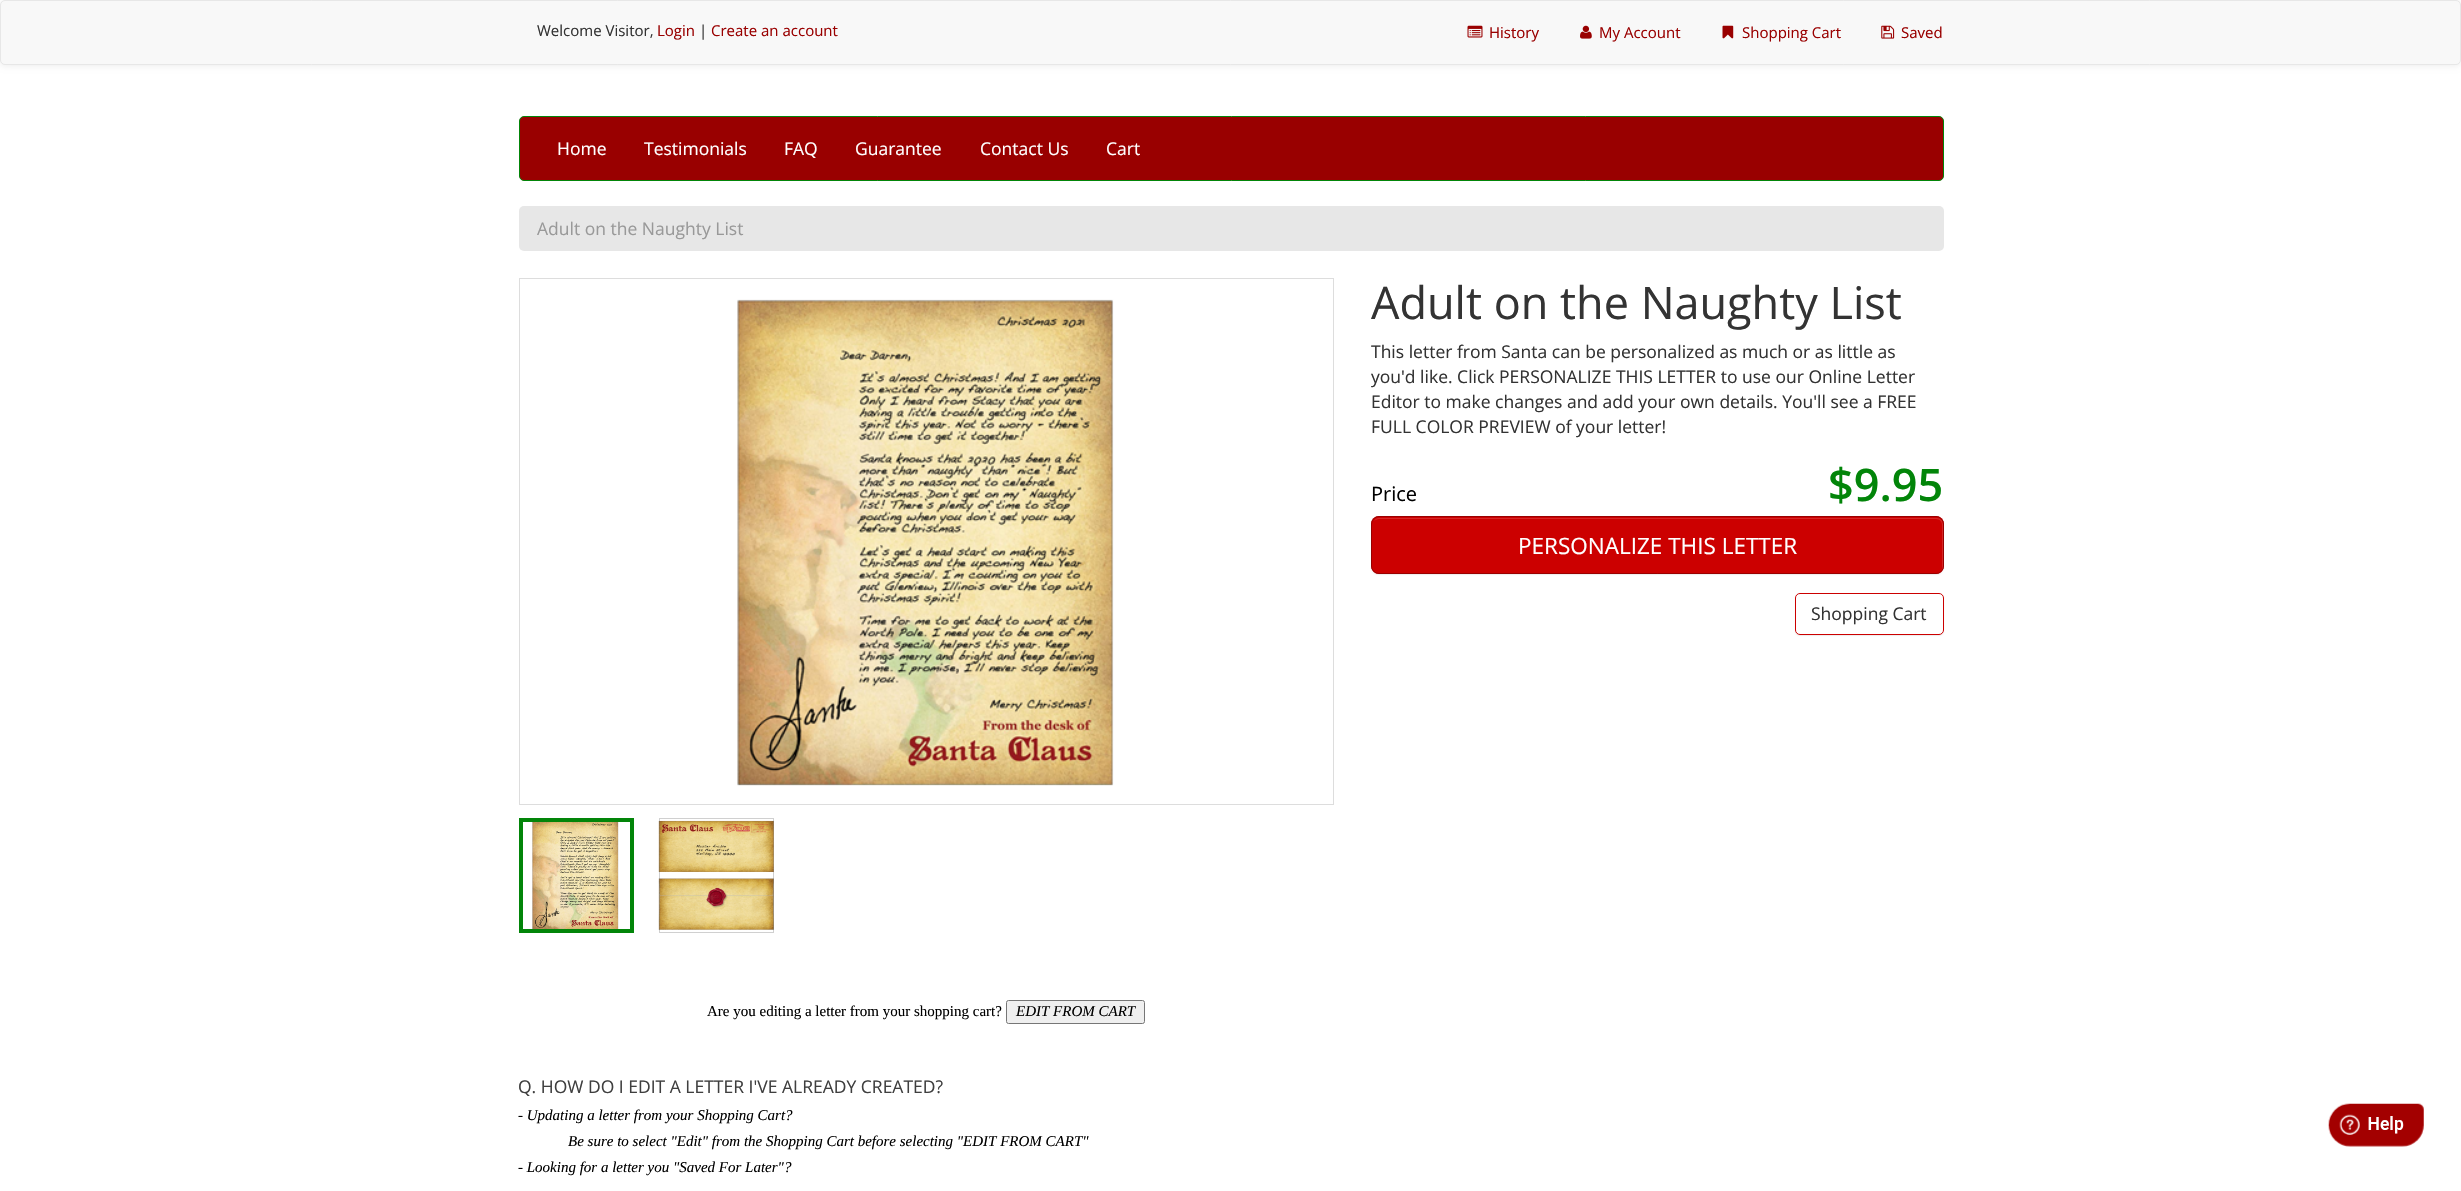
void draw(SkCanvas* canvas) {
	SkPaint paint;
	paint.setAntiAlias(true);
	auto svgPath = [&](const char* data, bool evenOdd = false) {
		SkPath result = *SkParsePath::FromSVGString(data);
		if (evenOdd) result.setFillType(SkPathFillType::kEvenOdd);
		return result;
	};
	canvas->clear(0xffffffff);
	paint.setColor(0x12000000);
	paint.setMaskFilter(SkMaskFilter::MakeBlur(kNormal_SkBlurStyle, 3));
	canvas->drawRoundRect(SkRect::MakeXYWH(0, 1, 2461, 65), 5, 5, paint);
	paint.setMaskFilter(nullptr);
	paint.setColor(0xfff8f8f8);
	canvas->drawRoundRect(SkRect::MakeXYWH(0.5, 0.5, 2460, 64), 4.5, 4.5, paint);
	paint.setStroke(true);
	paint.setStrokeWidth(1);
	paint.setColor(0xffe7e7e7);
	canvas->drawRoundRect(SkRect::MakeXYWH(0.5, 0.5, 2460, 64), 4.5, 4.5, paint);
	SkFont f1(fontMgr->matchFamilyStyle("Open Sans", SkFontStyle::Normal()), 15);
	f1.setSubpixel(true);
	paint.setStroke(false);
	paint.setColor(0xff333333);
	canvas->drawString("Welcome Visitor,", 537, 36, f1, paint);
	paint.setColor(0xff990000);
	canvas->drawString("Login", 657, 36, f1, paint);
	paint.setColor(0xff333333);
	canvas->drawString("|", 699, 36, f1, paint);
	paint.setColor(0xff990000);
	canvas->drawString("Create an account", 711, 36, f1, paint);
	canvas->drawImageRect(SkImages::DeferredFromEncodedData(SkData::MakeFromFileName("img1.png")), SkRect::MakeXYWH(1467, 25, 16, 13), SkSamplingOptions());
	canvas->drawString("History", 1489, 38, f1, paint);
	canvas->drawImageRect(SkImages::DeferredFromEncodedData(SkData::MakeFromFileName("img2.png")), SkRect::MakeXYWH(1580, 25, 12, 14), SkSamplingOptions());
	canvas->drawString("My Account", 1599, 38, f1, paint);
	canvas->drawImageRect(SkImages::DeferredFromEncodedData(SkData::MakeFromFileName("img3.png")), SkRect::MakeXYWH(1722, 25, 12, 14), SkSamplingOptions());
	canvas->drawString("Shopping Cart", 1742, 38, f1, paint);
	canvas->drawImageRect(SkImages::DeferredFromEncodedData(SkData::MakeFromFileName("img4.png")), SkRect::MakeXYWH(1881, 25, 14, 14), SkSamplingOptions());
	canvas->drawString("Saved", 1901, 38, f1, paint);
	canvas->drawRoundRect(SkRect::MakeXYWH(519.5, 116.5, 1424, 64), 4.5, 4.5, paint);
	paint.setStroke(true);
	paint.setColor(0xff028509);
	canvas->drawRoundRect(SkRect::MakeXYWH(519.5, 116.5, 1424, 64), 4.5, 4.5, paint);
	SkFont f2(fontMgr->matchFamilyStyle("Open Sans", SkFontStyle::Normal()), 17.5);
	f2.setSubpixel(true);
	paint.setStroke(false);
	paint.setColor(0xffffffff);
	canvas->drawString("Home", 557, 155, f2, paint);
	canvas->drawString("Testimonials", 644, 155, f2, paint);
	canvas->drawString("FAQ", 784, 155, f2, paint);
	canvas->drawString("Guarantee", 855, 155, f2, paint);
	canvas->drawString("Contact Us", 980, 155, f2, paint);
	canvas->drawString("Cart", 1106, 155, f2, paint);
	paint.setColor(0xffe7e7e7);
	canvas->drawRoundRect(SkRect::MakeXYWH(519, 206, 1425, 45), 5, 5, paint);
	paint.setColor(0xff999999);
	canvas->drawString("Adult on the Naughty List", 537, 235, f2, paint);
	SkFont f3(fontMgr->matchFamilyStyle("Open Sans", SkFontStyle::Normal()), 45);
	f3.setSubpixel(true);
	paint.setColor(0xff333333);
	canvas->drawString("Adult on the Naughty List", 1371, 319, f3, paint);
	canvas->drawString("This letter from Santa can be personalized as much or as little as", 1371, 358, f2, paint);
	canvas->drawString("you'd like. Click PERSONALIZE THIS LETTER to use our Online Letter", 1371, 383, f2, paint);
	canvas->drawString("Editor to make changes and add your own details. You'll see a FREE", 1371, 408, f2, paint);
	canvas->drawString("FULL COLOR PREVIEW of your letter!", 1371, 433, f2, paint);
	SkFont f4(fontMgr->matchFamilyStyle("Open Sans", SkFontStyle::Normal()), 20);
	f4.setSubpixel(true);
	paint.setColor(0xff000000);
	canvas->drawString("Price", 1371, 501, f4, paint);
	SkFont f5(fontMgr->matchFamilyStyle("Open Sans", SkFontStyle(600, SkFontStyle::kNormal_Width, SkFontStyle::kUpright_Slant)), 45);
	f5.setSubpixel(true);
	paint.setColor(0xff028509);
	canvas->drawString("$9.95", 1828, 501, f5, paint);
	paint.setColor(0x12000000);
	paint.setMaskFilter(SkMaskFilter::MakeBlur(kNormal_SkBlurStyle, 0.5));
	canvas->drawRoundRect(SkRect::MakeXYWH(1371, 518, 573, 57), 8, 8, paint);
	paint.setMaskFilter(nullptr);
	paint.setColor(0xffcc0000);
	canvas->drawRoundRect(SkRect::MakeXYWH(1371, 516, 573, 58), 8, 8, paint);
	paint.setColor(0xffd42626);
	canvas->drawPath(svgPath("M1379 519H1936C1940 519 1942 522 1942 525V568C1942 569 1942 570 1941 571C1942 570 1943 569 1943 567V524C1943 521 1940 518 1937 518H1379C1377 518 1375 519 1374 521C1375 520 1377 519 1379 519Z"), paint);
	paint.setStroke(true);
	paint.setColor(0xff990000);
	canvas->drawRoundRect(SkRect::MakeXYWH(1371.5, 516.5, 572, 57), 7.5, 7.5, paint);
	SkFont f6(fontMgr->matchFamilyStyle("Open Sans", SkFontStyle::Normal()), 22.5);
	f6.setSubpixel(true);
	paint.setStroke(false);
	paint.setColor(0xffffffff);
	canvas->drawString("PERSONALIZE THIS LETTER", 1518, 554, f6, paint);
	paint.setColor(0x12000000);
	paint.setMaskFilter(SkMaskFilter::MakeBlur(kNormal_SkBlurStyle, 0.5));
	canvas->drawRoundRect(SkRect::MakeXYWH(1795, 594, 149, 42), 5, 5, paint);
	paint.setMaskFilter(nullptr);
	paint.setColor(0xffffffff);
	canvas->drawRoundRect(SkRect::MakeXYWH(1795.5, 593.5, 148, 41), 4.5, 4.5, paint);
	paint.setStroke(true);
	paint.setColor(0xffcc0000);
	canvas->drawRoundRect(SkRect::MakeXYWH(1795.5, 593.5, 148, 41), 4.5, 4.5, paint);
	paint.setStroke(false);
	paint.setColor(0xff333333);
	canvas->drawString("Shopping Cart", 1811, 620, f2, paint);
	paint.setStroke(true);
	paint.setColor(0xffdddddd);
	canvas->drawRect(SkRect::MakeXYWH(519.5, 278.5, 814, 526), paint);
	canvas->drawImageRect(SkImages::DeferredFromEncodedData(SkData::MakeFromFileName("img5.png")), SkRect::MakeXYWH(737, 299, 377, 487), SkSamplingOptions());
	canvas->drawImageRect(SkImages::DeferredFromEncodedData(SkData::MakeFromFileName("img6.png")), SkRect::MakeXYWH(532, 822, 87, 107), SkSamplingOptions());
	paint.setStrokeWidth(4);
	paint.setColor(0xff028509);
	canvas->drawRect(SkRect::MakeXYWH(521, 820, 111, 111), paint);
	canvas->drawImageRect(SkImages::DeferredFromEncodedData(SkData::MakeFromFileName("img7.png")), SkRect::MakeXYWH(658, 820, 116, 110), SkSamplingOptions());
	paint.setStrokeWidth(1);
	paint.setColor(0x4d646464);
	canvas->drawRect(SkRect::MakeXYWH(659.5, 818.5, 114, 114), paint);
	SkFont f7(fontMgr->matchFamilyStyle("Liberation Serif", SkFontStyle::Normal()), 15);
	f7.setSubpixel(true);
	paint.setStroke(false);
	paint.setColor(0xff000000);
	canvas->drawString("Are you editing a letter from your shopping cart?", 707, 1016, f7, paint);
	paint.setColor(0xffefefef);
	canvas->drawRoundRect(SkRect::MakeXYWH(1006.5, 1000.5, 138, 23), 2, 2, paint);
	paint.setStroke(true);
	paint.setColor(0xff767676);
	canvas->drawRoundRect(SkRect::MakeXYWH(1006.5, 1000.5, 138, 23), 2, 2, paint);
	SkFont f8(fontMgr->matchFamilyStyle("Liberation Serif", SkFontStyle::Italic()), 15);
	f8.setSubpixel(true);
	paint.setStroke(false);
	paint.setColor(0xff000000);
	canvas->drawString("EDIT FROM CART", 1016, 1016, f8, paint);
	paint.setColor(0xff3f3f3f);
	canvas->drawString("Q. HOW DO I EDIT A LETTER I'VE ALREADY CREATED?", 518, 1093, f2, paint);
	paint.setColor(0xff000000);
	canvas->drawString("- Updating a letter from your Shopping Cart?", 518, 1120, f8, paint);
	canvas->drawString("Be sure to select \"Edit\" from the Shopping Cart before selecting \"EDIT FROM CART\"", 568, 1146, f8, paint);
	canvas->drawString("- Looking for a letter you \"Saved For Later\"?", 518, 1172, f8, paint);
	canvas->drawImageRect(SkImages::DeferredFromEncodedData(SkData::MakeFromFileName("img8.png")), SkRect::MakeXYWH(2328, 1103, 96, 44), SkSamplingOptions());
}
